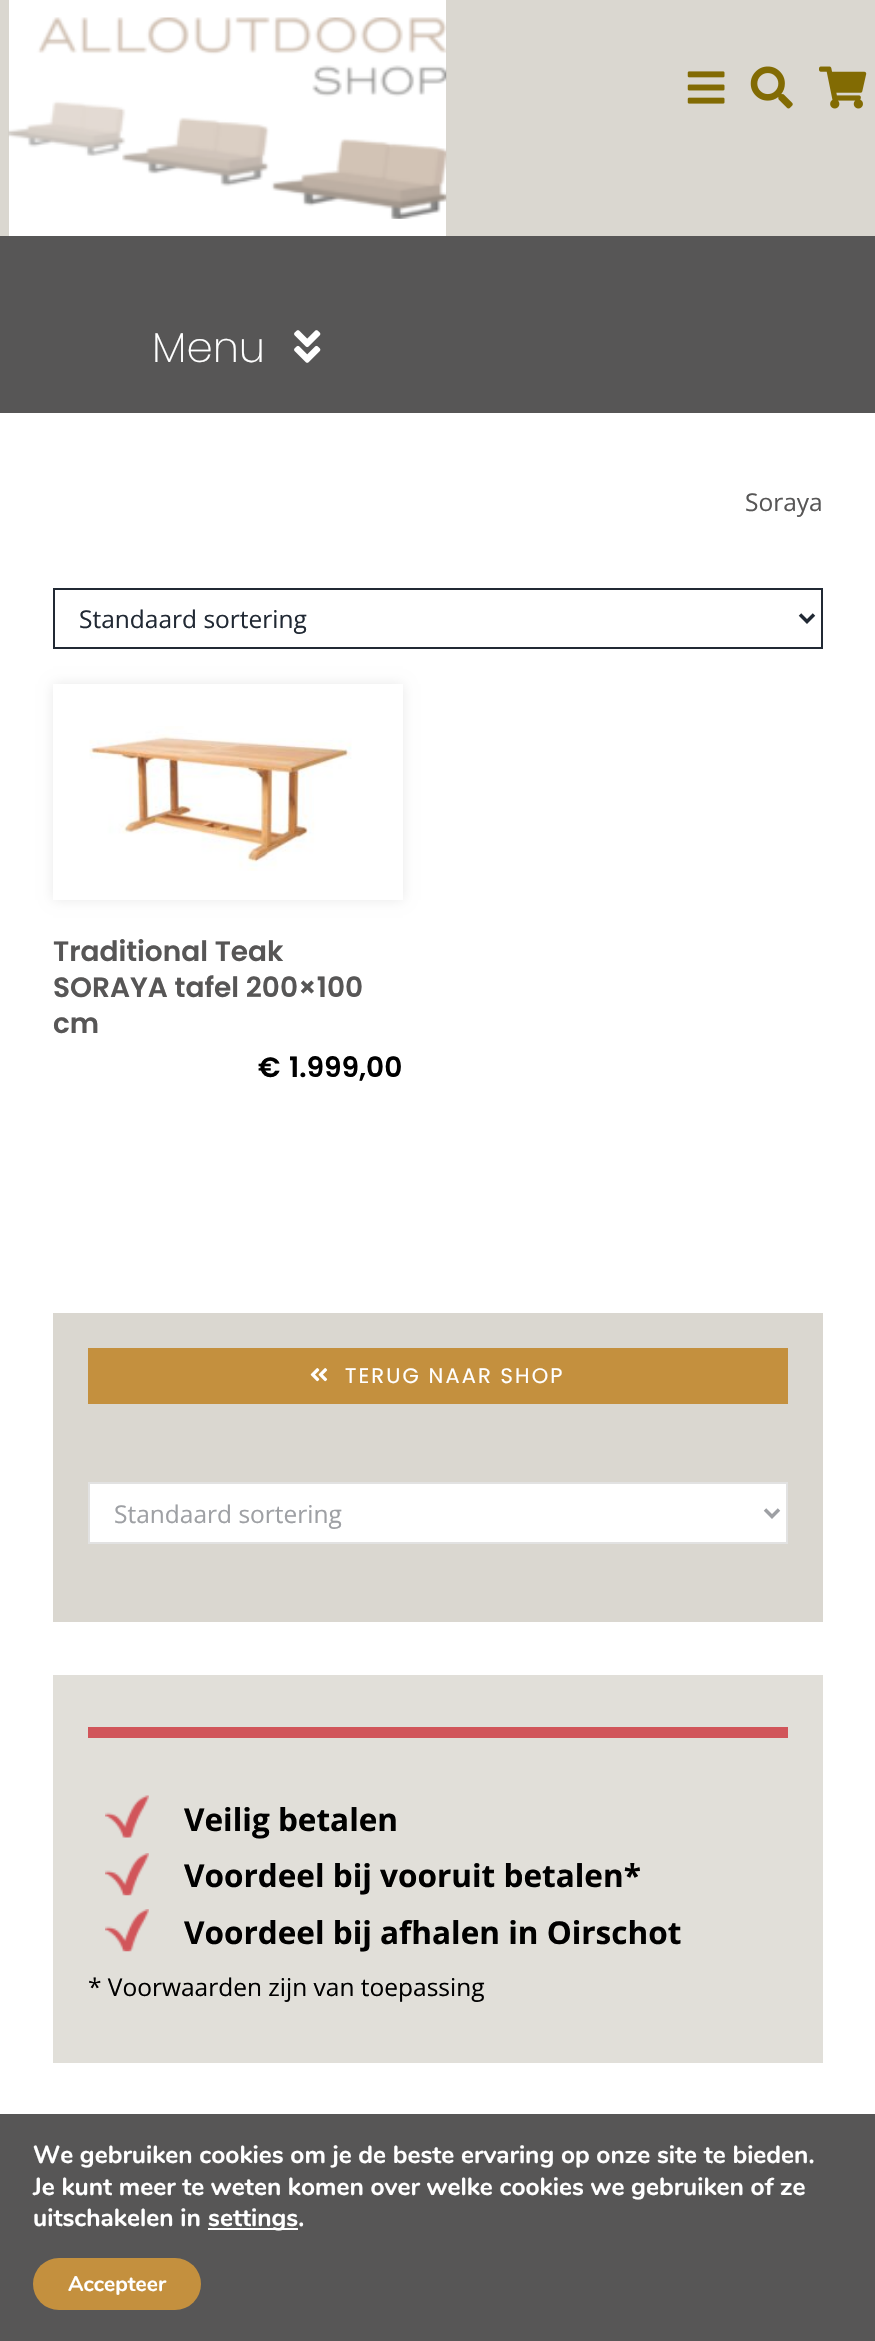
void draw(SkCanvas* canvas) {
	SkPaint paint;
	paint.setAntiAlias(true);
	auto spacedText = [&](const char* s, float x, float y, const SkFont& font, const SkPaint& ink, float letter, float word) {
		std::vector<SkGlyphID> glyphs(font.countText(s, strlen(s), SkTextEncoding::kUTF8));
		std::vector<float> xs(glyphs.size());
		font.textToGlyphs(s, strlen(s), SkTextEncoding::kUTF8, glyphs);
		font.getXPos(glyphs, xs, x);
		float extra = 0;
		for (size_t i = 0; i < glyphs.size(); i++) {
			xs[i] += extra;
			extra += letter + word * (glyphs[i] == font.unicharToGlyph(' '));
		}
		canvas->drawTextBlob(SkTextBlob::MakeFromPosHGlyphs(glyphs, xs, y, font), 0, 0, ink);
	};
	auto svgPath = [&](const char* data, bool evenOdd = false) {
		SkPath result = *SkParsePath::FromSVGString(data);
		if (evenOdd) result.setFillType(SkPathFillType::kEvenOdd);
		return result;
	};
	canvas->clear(0xffffffff);
	paint.setColor(0xffdad7d0);
	canvas->drawRect(SkRect::MakeXYWH(0, 0, 875, 236), paint);
	paint.setColor(0xffffffff);
	canvas->drawRect(SkRect::MakeXYWH(9, 0, 437, 236), paint);
	canvas->drawImageRect(SkImages::DeferredFromEncodedData(SkData::MakeFromFileName("img1.png")), SkRect::MakeXYWH(8, 17, 439, 202), SkSamplingOptions());
	canvas->drawImageRect(SkImages::DeferredFromEncodedData(SkData::MakeFromFileName("img2.png")), SkRect::MakeXYWH(687, 71, 38, 33), SkSamplingOptions());
	canvas->drawImageRect(SkImages::DeferredFromEncodedData(SkData::MakeFromFileName("img3.png")), SkRect::MakeXYWH(750, 66, 43, 43), SkSamplingOptions());
	canvas->drawImageRect(SkImages::DeferredFromEncodedData(SkData::MakeFromFileName("img4.png")), SkRect::MakeXYWH(819, 66, 48, 43), SkSamplingOptions());
	paint.setColor(0xff575656);
	canvas->drawRect(SkRect::MakeXYWH(0, 236, 875, 177), paint);
	SkFont f1(fontMgr->matchFamilyStyle("Poppins", SkFontStyle(200, SkFontStyle::kNormal_Width, SkFontStyle::kUpright_Slant)), 42);
	f1.setSubpixel(true);
	paint.setColor(0xffffffff);
	canvas->drawString("Menu", 152, 362, f1, paint);
	canvas->drawImageRect(SkImages::DeferredFromEncodedData(SkData::MakeFromFileName("img5.png")), SkRect::MakeXYWH(294, 330, 27, 33), SkSamplingOptions());
	SkFont f2(fontMgr->matchFamilyStyle("Open Sans", SkFontStyle::Normal()), 24.5);
	f2.setSubpixel(true);
	paint.setColor(0xff575656);
	canvas->drawString("Soraya", 745, 511, f2, paint);
	paint.setStroke(true);
	paint.setStrokeWidth(2);
	paint.setColor(0xff212934);
	canvas->drawRect(SkRect::MakeXYWH(54, 589, 768, 59), paint);
	paint.setStrokeWidth(3.5);
	canvas->drawPath(svgPath("M800 614.5L807 621.5L814 614.5"), paint);
	paint.setStroke(false);
	canvas->drawString("Standaard sortering", 79, 628, f2, paint);
	canvas->save();
	canvas->clipPath(svgPath("M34 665H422V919H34ZM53 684H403V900H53Z", true), true);
	paint.setColor(0xffe9e9e9);
	paint.setMaskFilter(SkMaskFilter::MakeBlur(kNormal_SkBlurStyle, 6));
	canvas->drawRect(SkRect::MakeXYWH(53, 684, 350, 216), paint);
	paint.setMaskFilter(nullptr);
	canvas->restore();
	canvas->drawImageRect(SkImages::DeferredFromEncodedData(SkData::MakeFromFileName("img6.png")), SkRect::MakeXYWH(89, 726, 263, 145), SkSamplingOptions());
	SkFont f3(fontMgr->matchFamilyStyle("Poppins", SkFontStyle(600, SkFontStyle::kNormal_Width, SkFontStyle::kUpright_Slant)), 28);
	f3.setSubpixel(true);
	paint.setColor(0xff575656);
	canvas->drawString("Traditional Teak", 53, 961, f3, paint);
	canvas->drawString("SORAYA tafel 200×100", 53, 997, f3, paint);
	canvas->drawString("cm", 53, 1033, f3, paint);
	paint.setColor(0xff000000);
	canvas->drawString("€", 258, 1077, f3, paint);
	canvas->drawString("1.999,00", 289, 1077, f3, paint);
	paint.setColor(0xffdad7d0);
	canvas->drawRect(SkRect::MakeXYWH(53, 1313, 770, 309), paint);
	paint.setColor(0xffe1dfd9);
	canvas->drawRect(SkRect::MakeXYWH(53, 1675, 770, 388), paint);
	paint.setColor(0xffc4903e);
	canvas->drawRect(SkRect::MakeXYWH(88, 1348, 700, 56), paint);
	canvas->drawImageRect(SkImages::DeferredFromEncodedData(SkData::MakeFromFileName("img7.png")), SkRect::MakeXYWH(310, 1368, 18, 14), SkSamplingOptions());
	SkFont f4(fontMgr->matchFamilyStyle("Poppins", SkFontStyle::Normal()), 21);
	f4.setSubpixel(true);
	paint.setColor(0xffffffff);
	spacedText("TERUG NAAR SHOP", 345, 1383, f4, paint, 2.1, 0);
	canvas->drawRect(SkRect::MakeXYWH(89, 1483, 698, 60), paint);
	paint.setStroke(true);
	paint.setStrokeWidth(2);
	paint.setColor(0xffe2e2e2);
	canvas->drawRect(SkRect::MakeXYWH(89, 1483, 698, 60), paint);
	paint.setStrokeWidth(3.5);
	paint.setColor(0xff9ea0a4);
	canvas->drawPath(svgPath("M765 1509.5L772 1516.5L779 1509.5"), paint);
	paint.setStroke(false);
	canvas->drawString("Standaard sortering", 114, 1523, f2, paint);
	paint.setColor(0xffd1555a);
	canvas->drawRect(SkRect::MakeXYWH(88, 1727, 700, 11), paint);
	canvas->drawImageRect(SkImages::DeferredFromEncodedData(SkData::MakeFromFileName("img8.png")), SkRect::MakeXYWH(105, 1795, 44, 43), SkSamplingOptions());
	SkFont f5(fontMgr->matchFamilyStyle("Open Sans", SkFontStyle::Bold()), 31.5);
	f5.setSubpixel(true);
	paint.setColor(0xff000000);
	canvas->drawString("Veilig betalen", 184, 1831, f5, paint);
	canvas->drawImageRect(SkImages::DeferredFromEncodedData(SkData::MakeFromFileName("img9.png")), SkRect::MakeXYWH(105, 1853, 44, 43), SkSamplingOptions());
	canvas->drawString("Voordeel bij vooruit betalen*", 184, 1887, f5, paint);
	canvas->drawImageRect(SkImages::DeferredFromEncodedData(SkData::MakeFromFileName("img10.png")), SkRect::MakeXYWH(105, 1909, 44, 43), SkSamplingOptions());
	canvas->drawString("Voordeel bij afhalen in Oirschot", 184, 1944, f5, paint);
	canvas->drawString("* Voorwaarden zijn van toepassing", 88, 1996, f2, paint);
	paint.setColor(0xff575656);
	canvas->drawRect(SkRect::MakeXYWH(0, 2114, 875, 227), paint);
	SkFont f6(fontMgr->matchFamilyStyle("Nunito", SkFontStyle::Bold()), 24.5);
	f6.setSubpixel(true);
	paint.setColor(0xffffffff);
	canvas->drawString("We gebruiken cookies om je de beste ervaring op onze site te bieden.", 33, 2163, f6, paint);
	canvas->drawString("Je kunt meer te weten komen over welke cookies we gebruiken of ze", 33, 2195, f6, paint);
	canvas->drawString("uitschakelen in", 33, 2226, f6, paint);
	canvas->drawRect(SkRect::MakeXYWH(208, 2228, 90, 2), paint);
	canvas->drawString("settings.", 208, 2226, f6, paint);
	paint.setColor(0xffc4903e);
	canvas->drawRoundRect(SkRect::MakeXYWH(33, 2258, 168, 52), 26, 26, paint);
	SkFont f7(fontMgr->matchFamilyStyle("Nunito", SkFontStyle::Bold()), 21);
	f7.setSubpixel(true);
	paint.setColor(0xffffffff);
	canvas->drawString("Accepteer", 68, 2291, f7, paint);
}
